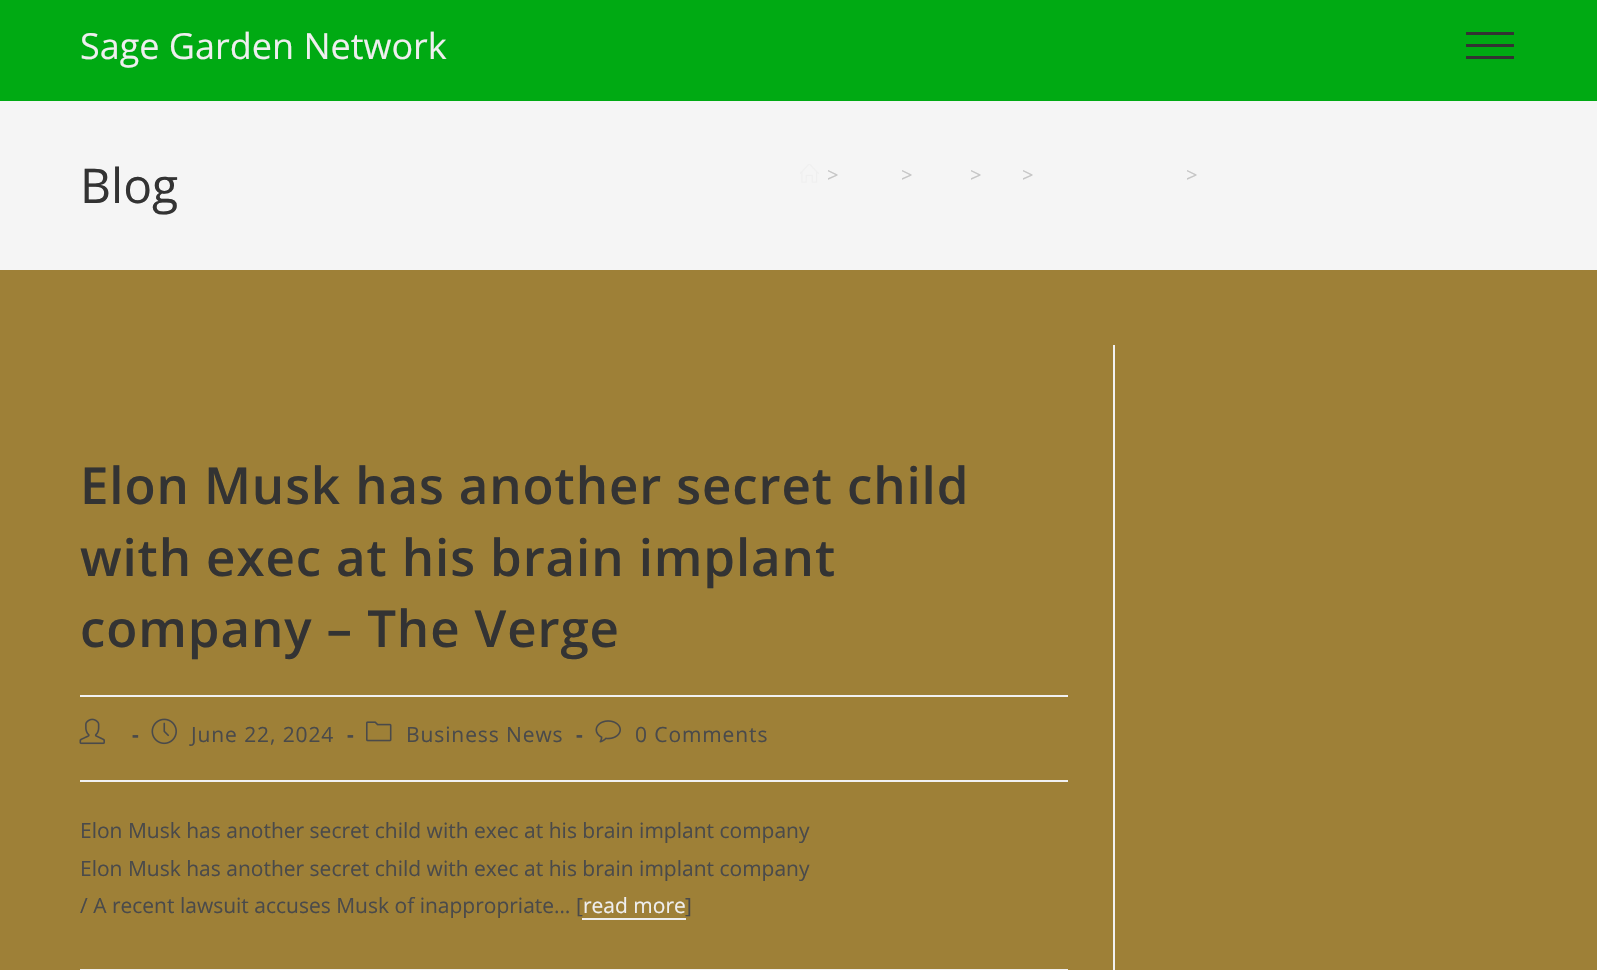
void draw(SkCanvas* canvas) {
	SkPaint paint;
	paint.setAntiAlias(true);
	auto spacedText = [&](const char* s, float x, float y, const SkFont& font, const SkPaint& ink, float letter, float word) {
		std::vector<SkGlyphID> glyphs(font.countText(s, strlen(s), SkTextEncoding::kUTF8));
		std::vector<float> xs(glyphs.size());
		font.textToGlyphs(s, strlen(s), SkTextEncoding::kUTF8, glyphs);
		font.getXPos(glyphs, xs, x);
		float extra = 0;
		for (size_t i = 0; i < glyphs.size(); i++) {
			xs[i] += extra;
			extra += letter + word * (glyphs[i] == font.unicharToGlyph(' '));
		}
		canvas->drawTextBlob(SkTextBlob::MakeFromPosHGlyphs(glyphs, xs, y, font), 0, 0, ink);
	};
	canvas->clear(0xff9e8037);
	paint.setColor(0xff00aa13);
	canvas->drawRect(SkRect::MakeXYWH(0, 0, 1597, 101), paint);
	SkFont f1(fontMgr->matchFamilyStyle("Open Sans", SkFontStyle::Normal()), 36);
	f1.setSubpixel(true);
	paint.setColor(0xffefefef);
	canvas->drawString("Sage Garden Network", 80, 59, f1, paint);
	paint.setColor(0xff333333);
	canvas->drawRect(SkRect::MakeXYWH(1466, 44, 48, 3), paint);
	canvas->drawRect(SkRect::MakeXYWH(1466, 32, 48, 3), paint);
	canvas->drawRect(SkRect::MakeXYWH(1466, 56, 48, 3), paint);
	paint.setColor(0xfff5f5f5);
	canvas->drawRect(SkRect::MakeXYWH(0, 101, 1597, 169), paint);
	SkFont f2(fontMgr->matchFamilyStyle("Open Sans", SkFontStyle::Normal()), 48);
	f2.setSubpixel(true);
	paint.setColor(0xff333333);
	canvas->drawString("Blog", 80, 203, f2, paint);
	canvas->drawImageRect(SkImages::DeferredFromEncodedData(SkData::MakeFromFileName("img1.png")), SkRect::MakeXYWH(800, 164, 19, 19), SkSamplingOptions());
	SkFont f3(fontMgr->matchFamilyStyle("Open Sans", SkFontStyle::Normal()), 20);
	f3.setSubpixel(true);
	paint.setColor(0xffc6c6c6);
	canvas->drawString(">", 827, 182, f3, paint);
	canvas->drawString(">", 901, 182, f3, paint);
	canvas->drawString(">", 970, 182, f3, paint);
	canvas->drawString(">", 1022, 182, f3, paint);
	canvas->drawString(">", 1186, 182, f3, paint);
	paint.setColor(0xfff1f1f1);
	canvas->drawRect(SkRect::MakeXYWH(1113, 345, 2, 625), paint);
	canvas->drawRect(SkRect::MakeXYWH(80, 695, 988, 2), paint);
	SkFont f4(fontMgr->matchFamilyStyle("Open Sans", SkFontStyle(600, SkFontStyle::kNormal_Width, SkFontStyle::kUpright_Slant)), 51);
	f4.setSubpixel(true);
	paint.setColor(0xff333333);
	spacedText("Elon Musk has another secret child", 80, 504, f4, paint, 0.9, 0);
	spacedText("with exec at his brain implant", 80, 576, f4, paint, 0.9, 0);
	spacedText("company – The Verge", 80, 647, f4, paint, 0.9, 0);
	paint.setColor(0xfff1f1f1);
	canvas->drawRect(SkRect::MakeXYWH(80, 780, 988, 2), paint);
	canvas->drawImageRect(SkImages::DeferredFromEncodedData(SkData::MakeFromFileName("img2.png")), SkRect::MakeXYWH(79, 718, 26, 27), SkSamplingOptions());
	SkFont f5(fontMgr->matchFamilyStyle("Open Sans", SkFontStyle::Bold()), 21);
	f5.setSubpixel(true);
	paint.setColor(0xff4a4a4a);
	spacedText("-", 132, 742, f5, paint, 0.9, 0);
	canvas->drawImageRect(SkImages::DeferredFromEncodedData(SkData::MakeFromFileName("img3.png")), SkRect::MakeXYWH(151, 718, 26, 27), SkSamplingOptions());
	SkFont f6(fontMgr->matchFamilyStyle("Open Sans", SkFontStyle::Normal()), 21);
	f6.setSubpixel(true);
	spacedText("June 22, 2024", 191, 742, f6, paint, 0.9, 0);
	spacedText("-", 347, 742, f5, paint, 0.9, 0);
	canvas->drawImageRect(SkImages::DeferredFromEncodedData(SkData::MakeFromFileName("img4.png")), SkRect::MakeXYWH(366, 721, 26, 21), SkSamplingOptions());
	spacedText("Business News", 406, 742, f6, paint, 0.9, 0);
	spacedText("-", 576, 742, f5, paint, 0.9, 0);
	canvas->drawImageRect(SkImages::DeferredFromEncodedData(SkData::MakeFromFileName("img5.png")), SkRect::MakeXYWH(595, 720, 26, 23), SkSamplingOptions());
	spacedText("0 Comments", 635, 742, f6, paint, 0.9, 0);
	canvas->drawString("Elon Musk has another secret child with exec at his brain implant company", 80, 838, f6, paint);
	canvas->drawString("Elon Musk has another secret child with exec at his brain implant company", 80, 876, f6, paint);
	canvas->drawString("/ A recent lawsuit accuses Musk of inappropriate… [", 80, 913, f6, paint);
	paint.setColor(0xffefefef);
	canvas->drawString("read more", 583, 913, f6, paint);
	canvas->drawRect(SkRect::MakeXYWH(582, 918, 104, 2), paint);
	paint.setColor(0xff4a4a4a);
	canvas->drawString("]", 685, 913, f6, paint);
	paint.setColor(0xfff1f1f1);
	canvas->drawRect(SkRect::MakeXYWH(80, 969, 988, 1), paint);
}
